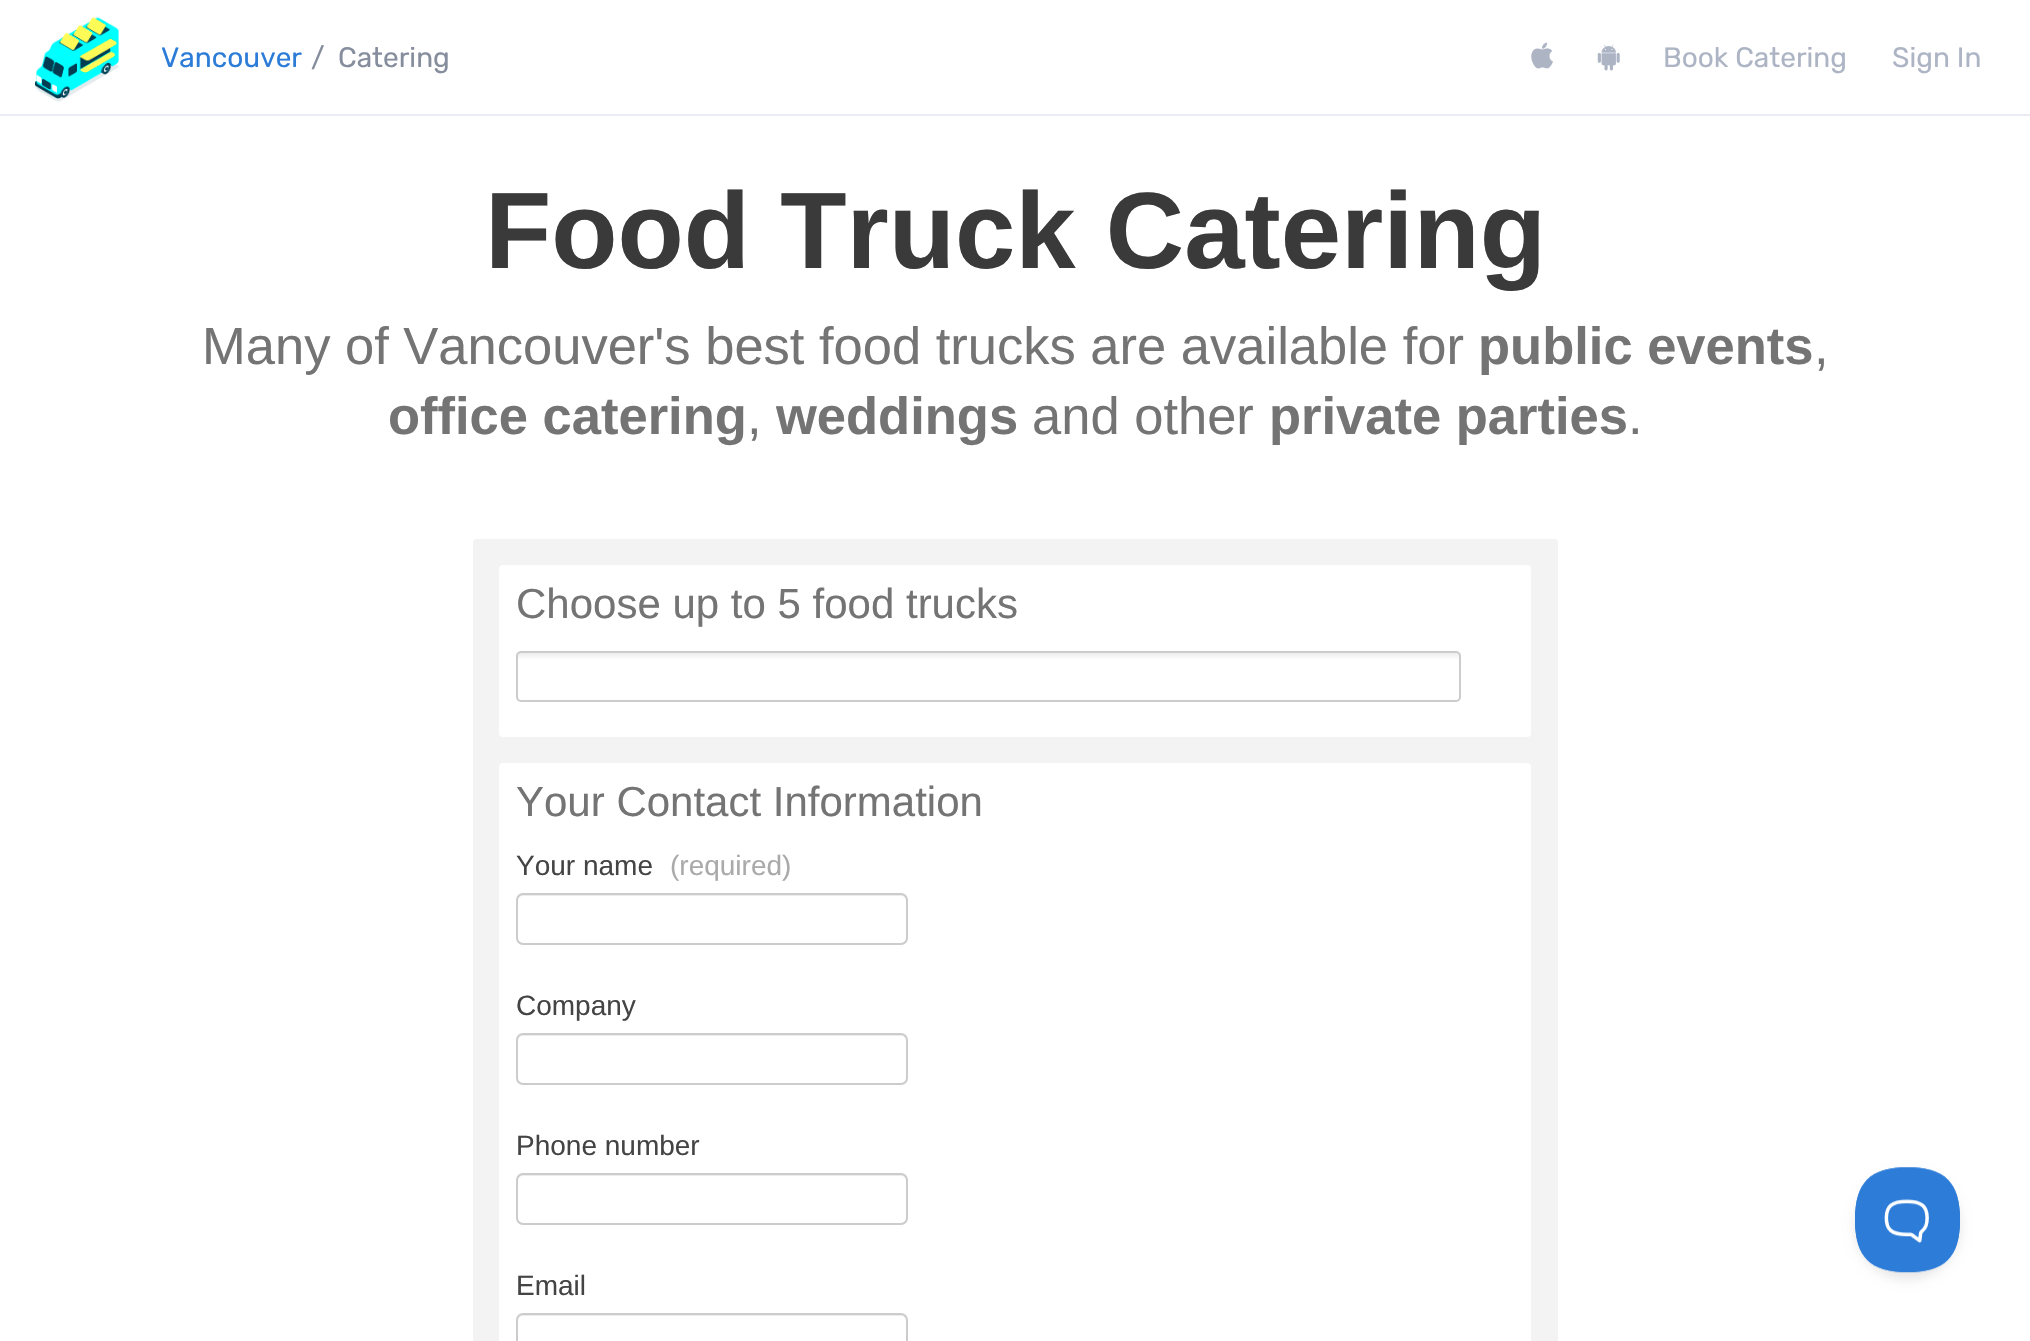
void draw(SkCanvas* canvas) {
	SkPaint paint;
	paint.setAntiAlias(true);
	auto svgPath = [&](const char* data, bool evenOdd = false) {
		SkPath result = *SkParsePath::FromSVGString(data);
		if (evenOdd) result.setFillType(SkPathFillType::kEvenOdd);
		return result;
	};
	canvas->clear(0xffffffff);
	paint.setColor(0xffe9ecf2);
	canvas->drawRect(SkRect::MakeXYWH(0, 114, 2030, 2), paint);
	canvas->drawImageRect(SkImages::DeferredFromEncodedData(SkData::MakeFromFileName("img1.png")), SkRect::MakeXYWH(35, 17, 84, 85), SkSamplingOptions());
	SkFont f1(fontMgr->matchFamilyStyle("Rubik", SkFontStyle::Normal()), 28);
	f1.setSubpixel(true);
	paint.setColor(0xff2c7cd8);
	canvas->drawString("Vancouver", 161, 67, f1, paint);
	paint.setColor(0xff868e9e);
	canvas->drawString("/", 311, 67, f1, paint);
	canvas->drawString("Catering", 338, 67, f1, paint);
	canvas->drawImageRect(SkImages::DeferredFromEncodedData(SkData::MakeFromFileName("img2.png")), SkRect::MakeXYWH(1531, 42, 22, 27), SkSamplingOptions());
	canvas->drawImageRect(SkImages::DeferredFromEncodedData(SkData::MakeFromFileName("img3.png")), SkRect::MakeXYWH(1597, 44, 23, 27), SkSamplingOptions());
	paint.setColor(0xffadb5c5);
	canvas->drawString("Book Catering", 1663, 67, f1, paint);
	canvas->drawString("Sign In", 1892, 67, f1, paint);
	SkFont f2(fontMgr->matchFamilyStyle("Liberation Sans", SkFontStyle::Bold()), 108.5);
	f2.setSubpixel(true);
	paint.setColor(0xff3a3a3a);
	canvas->drawString("Food Truck Catering", 485, 268, f2, paint);
	SkFont f3(fontMgr->matchFamilyStyle("Liberation Sans", SkFontStyle::Normal()), 52.5);
	f3.setSubpixel(true);
	paint.setColor(0xff747474);
	canvas->drawString("Many of Vancouver's best food trucks are available for", 202, 364, f3, paint);
	SkFont f4(fontMgr->matchFamilyStyle("Liberation Sans", SkFontStyle::Bold()), 52.5);
	f4.setSubpixel(true);
	canvas->drawString("public events", 1478, 364, f4, paint);
	canvas->drawString(",", 1814, 364, f3, paint);
	canvas->drawString("office catering", 388, 434, f4, paint);
	canvas->drawString(",", 747, 434, f3, paint);
	canvas->drawString("weddings", 776, 434, f4, paint);
	canvas->drawString("and other", 1032, 434, f3, paint);
	canvas->drawString("private parties", 1269, 434, f4, paint);
	canvas->drawString(".", 1628, 434, f3, paint);
	paint.setColor(0xfff3f3f3);
	canvas->drawRoundRect(SkRect::MakeXYWH(473, 539, 1085, 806), 4, 4, paint);
	paint.setColor(0xffffffff);
	canvas->drawRoundRect(SkRect::MakeXYWH(499, 565, 1032, 172), 4, 4, paint);
	SkFont f5(fontMgr->matchFamilyStyle("Liberation Sans", SkFontStyle::Normal()), 42);
	f5.setSubpixel(true);
	paint.setColor(0xff747474);
	canvas->drawString("Choose up to 5 food trucks", 516, 618, f5, paint);
	canvas->save();
	canvas->clipPath(svgPath("M521 651H1456C1459 651 1461 653 1461 656V697C1461 700 1459 702 1456 702H521C518 702 516 700 516 697V656C516 653 518 651 521 651Z"), true);
	{
		const SkColor colors[] = {0xffeeeeee, 0xffffffff};
		const float stops[] = {0.01, 0.15};
		const SkPoint ends[] = {{989, 653}, {989, 700}};
		paint.setShader(SkGradientShader::MakeLinear(ends, colors, stops, 2, SkTileMode::kClamp));
		paint.setAlpha(255);
	}
	canvas->drawRect(SkRect::MakeXYWH(516, 653, 945, 47), paint);
	canvas->restore();
	paint.setStroke(true);
	paint.setStrokeWidth(2);
	paint.setShader(nullptr);
	paint.setColor(0xffcccccc);
	canvas->drawRoundRect(SkRect::MakeXYWH(517, 652, 943, 49), 4, 4, paint);
	paint.setStroke(false);
	paint.setColor(0xffffffff);
	canvas->drawRoundRect(SkRect::MakeXYWH(499, 763, 1032, 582), 4, 4, paint);
	paint.setColor(0xff747474);
	canvas->drawString("Your Contact Information", 516, 816, f5, paint);
	SkFont f6(fontMgr->matchFamilyStyle("Liberation Sans", SkFontStyle::Normal()), 28);
	f6.setSubpixel(true);
	paint.setColor(0xff444444);
	canvas->drawString("Your name", 516, 875, f6, paint);
	paint.setColor(0xffaaaaaa);
	canvas->drawString("(required)", 670, 875, f6, paint);
	paint.setColor(0xffececec);
	canvas->drawPath(svgPath("M523 896H901C904 896 906 898 906 901V941C907 940 907 939 907 938V899C907 896 905 894 902 894H523C520 894 518 896 518 899V901C518 898 520 896 523 896Z"), paint);
	paint.setStroke(true);
	paint.setColor(0xffcccccc);
	canvas->drawRoundRect(SkRect::MakeXYWH(517, 894, 390, 50), 6, 6, paint);
	paint.setStroke(false);
	paint.setColor(0xff444444);
	canvas->drawString("Company", 516, 1015, f6, paint);
	paint.setColor(0xffececec);
	canvas->drawPath(svgPath("M523 1036H901C904 1036 906 1038 906 1041V1081C907 1080 907 1079 907 1078V1039C907 1036 905 1034 902 1034H523C520 1034 518 1036 518 1039V1041C518 1038 520 1036 523 1036Z"), paint);
	paint.setStroke(true);
	paint.setColor(0xffcccccc);
	canvas->drawRoundRect(SkRect::MakeXYWH(517, 1034, 390, 50), 6, 6, paint);
	paint.setStroke(false);
	paint.setColor(0xff444444);
	canvas->drawString("Phone number", 516, 1155, f6, paint);
	paint.setColor(0xffececec);
	canvas->drawPath(svgPath("M523 1176H901C904 1176 906 1178 906 1181V1221C907 1220 907 1219 907 1218V1179C907 1176 905 1174 902 1174H523C520 1174 518 1176 518 1179V1181C518 1178 520 1176 523 1176Z"), paint);
	paint.setStroke(true);
	paint.setColor(0xffcccccc);
	canvas->drawRoundRect(SkRect::MakeXYWH(517, 1174, 390, 50), 6, 6, paint);
	paint.setStroke(false);
	paint.setColor(0xff444444);
	canvas->drawString("Email", 516, 1295, f6, paint);
	paint.setColor(0xffececec);
	canvas->drawPath(svgPath("M523 1316H901C904 1316 906 1318 906 1321V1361C907 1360 907 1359 907 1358V1319C907 1316 905 1314 902 1314H523C520 1314 518 1316 518 1319V1321C518 1318 520 1316 523 1316Z"), paint);
	paint.setStroke(true);
	paint.setColor(0xffcccccc);
	canvas->drawRoundRect(SkRect::MakeXYWH(517, 1314, 390, 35), 6, 6, paint);
	paint.setStroke(false);
	paint.setColor(0x1a000000);
	paint.setMaskFilter(SkMaskFilter::MakeBlur(kNormal_SkBlurStyle, 6));
	canvas->drawRoundRect(SkRect::MakeXYWH(1855, 1174, 105, 105), 52.5, 52.5, paint);
	paint.setMaskFilter(nullptr);
	canvas->drawImageRect(SkImages::DeferredFromEncodedData(SkData::MakeFromFileName("img4.png")), SkRect::MakeXYWH(1855, 1167, 105, 106), SkSamplingOptions());
}
